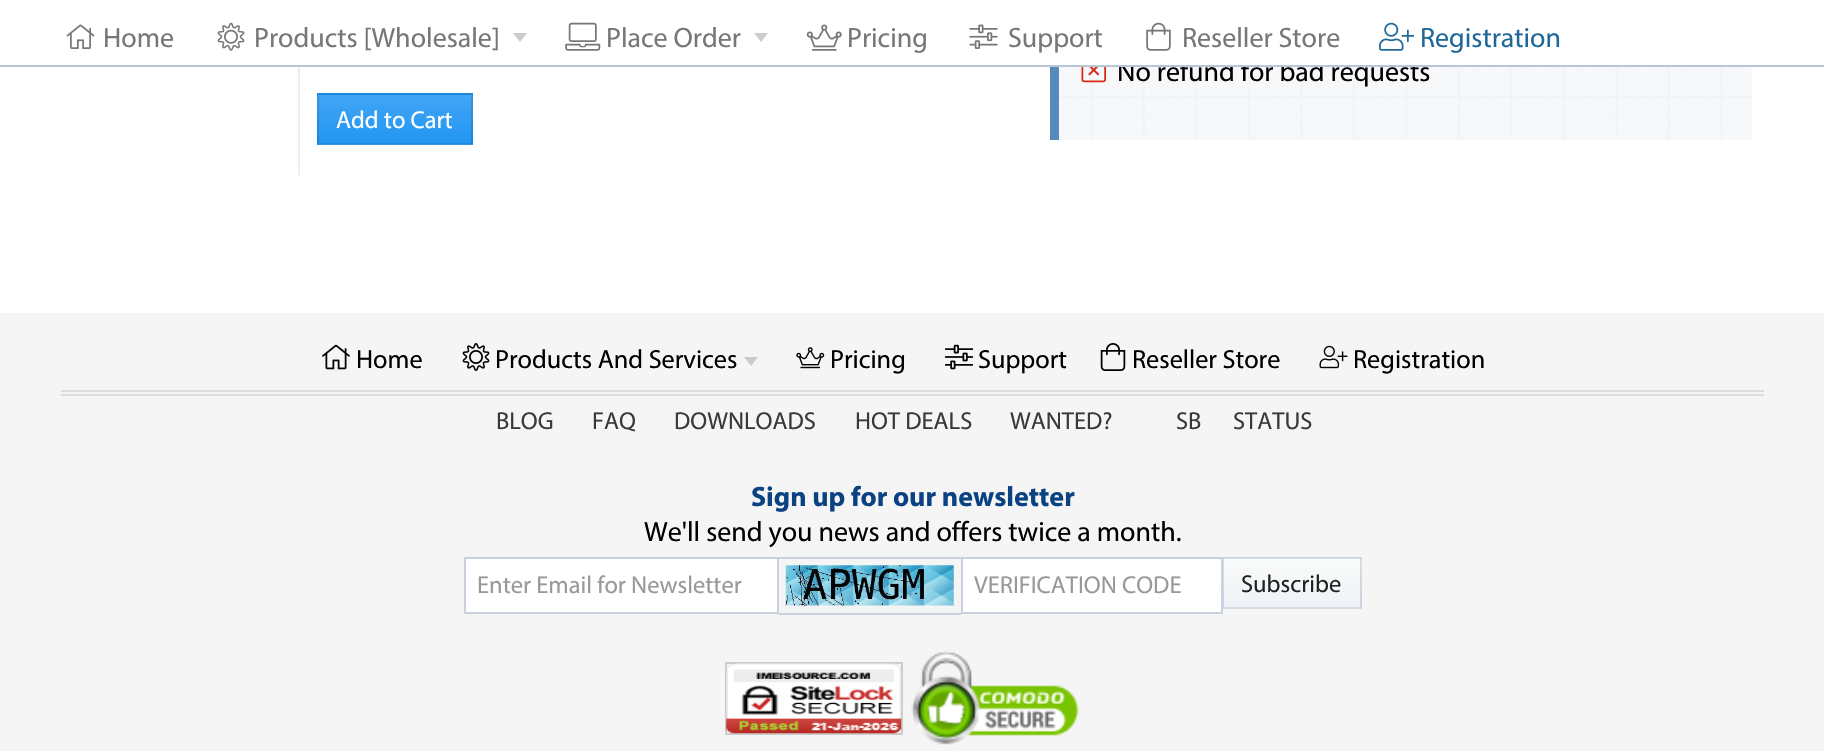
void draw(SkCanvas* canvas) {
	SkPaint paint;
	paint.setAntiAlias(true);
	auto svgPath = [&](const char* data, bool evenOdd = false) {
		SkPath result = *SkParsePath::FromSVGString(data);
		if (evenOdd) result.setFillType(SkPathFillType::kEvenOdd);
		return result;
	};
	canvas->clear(0xffffffff);
	paint.setColor(0xfffafbfc);
	canvas->drawRect(SkRect::MakeXYWH(1059, 67, 693, 73), paint);
	canvas->drawImageRect(SkImages::DeferredFromEncodedData(SkData::MakeFromFileName("img8.png")), SkRect::MakeXYWH(1059, 67, 693, 73), SkSamplingOptions());
	SkFont f1(fontMgr->matchFamilyStyle("Myriad", SkFontStyle::Normal()), 28);
	f1.setSubpixel(true);
	paint.setColor(0xff000000);
	canvas->drawString("No refund for bad requests", 1117, 81, f1, paint);
	paint.setColor(0xffffffff);
	canvas->drawRect(SkRect::MakeXYWH(1118, 60, 297, 5), paint);
	paint.setColor(0xffbac5d8);
	canvas->drawRect(SkRect::MakeXYWH(0, 65, 1824, 2), paint);
	canvas->drawImageRect(SkImages::DeferredFromEncodedData(SkData::MakeFromFileName("img1.png")), SkRect::MakeXYWH(66, 24, 29, 25), SkSamplingOptions());
	paint.setColor(0xff777777);
	canvas->drawString("Home", 103, 47, f1, paint);
	canvas->drawImageRect(SkImages::DeferredFromEncodedData(SkData::MakeFromFileName("img2.png")), SkRect::MakeXYWH(217, 22, 28, 29), SkSamplingOptions());
	canvas->drawString("Products [Wholesale]", 254, 47, f1, paint);
	paint.setColor(0xffcccccc);
	canvas->drawPath(svgPath("M513 33H527L520 42Z"), paint);
	canvas->drawImageRect(SkImages::DeferredFromEncodedData(SkData::MakeFromFileName("img3.png")), SkRect::MakeXYWH(565, 22, 36, 29), SkSamplingOptions());
	paint.setColor(0xff777777);
	canvas->drawString("Place Order", 606, 47, f1, paint);
	paint.setColor(0xffcccccc);
	canvas->drawPath(svgPath("M754 33H768L761 42Z"), paint);
	canvas->drawImageRect(SkImages::DeferredFromEncodedData(SkData::MakeFromFileName("img4.png")), SkRect::MakeXYWH(806, 24, 36, 27), SkSamplingOptions());
	paint.setColor(0xff777777);
	canvas->drawString("Pricing", 847, 47, f1, paint);
	canvas->drawImageRect(SkImages::DeferredFromEncodedData(SkData::MakeFromFileName("img5.png")), SkRect::MakeXYWH(969, 24, 29, 25), SkSamplingOptions());
	canvas->drawString("Support", 1008, 47, f1, paint);
	canvas->drawImageRect(SkImages::DeferredFromEncodedData(SkData::MakeFromFileName("img6.png")), SkRect::MakeXYWH(1146, 22, 25, 29), SkSamplingOptions());
	canvas->drawString("Reseller Store", 1182, 47, f1, paint);
	canvas->drawImageRect(SkImages::DeferredFromEncodedData(SkData::MakeFromFileName("img7.png")), SkRect::MakeXYWH(1379, 22, 35, 29), SkSamplingOptions());
	paint.setColor(0xff1f6899);
	canvas->drawString("Registration", 1420, 47, f1, paint);
	paint.setColor(0xffeeeeee);
	canvas->drawRect(SkRect::MakeXYWH(298, 67, 2, 108), paint);
	paint.setColor(0xff558abb);
	canvas->drawRect(SkRect::MakeXYWH(1050, 67, 9, 73), paint);
	canvas->drawImageRect(SkImages::DeferredFromEncodedData(SkData::MakeFromFileName("img9.png")), SkRect::MakeXYWH(1081, 67, 25, 16), SkSamplingOptions());
	{
		const SkColor colors[] = {0xff42a5f5, 0xff2196f3};
		const float stops[] = {0, 1};
		const SkPoint ends[] = {{395, 45}, {395, 95}};
		paint.setShader(SkGradientShader::MakeLinear(ends, colors, stops, 2, SkTileMode::kClamp));
		paint.setAlpha(255);
	}
	canvas->drawRect(SkRect::MakeXYWH(317, 93, 156, 2), paint);
	{
		const SkColor colors[] = {0xff42a5f5, 0xff2196f3};
		const float stops[] = {0, 1};
		const SkPoint ends[] = {{395, 94}, {395, 144}};
		paint.setShader(SkGradientShader::MakeLinear(ends, colors, stops, 2, SkTileMode::kClamp));
		paint.setAlpha(255);
	}
	canvas->drawRect(SkRect::MakeXYWH(317, 95, 156, 49), paint);
	{
		const SkColor colors[] = {0xff42a5f5, 0xff2196f3};
		const float stops[] = {0, 1};
		const SkPoint ends[] = {{395, 144}, {395, 193}};
		paint.setShader(SkGradientShader::MakeLinear(ends, colors, stops, 2, SkTileMode::kClamp));
		paint.setAlpha(255);
	}
	canvas->drawRect(SkRect::MakeXYWH(317, 144, 156, 1), paint);
	paint.setStroke(true);
	paint.setStrokeWidth(2);
	paint.setShader(nullptr);
	paint.setColor(0x26003158);
	canvas->drawRect(SkRect::MakeXYWH(318, 94, 154, 50), paint);
	SkFont f2(fontMgr->matchFamilyStyle("Myriad", SkFontStyle::Normal()), 24.5);
	f2.setSubpixel(true);
	paint.setStroke(false);
	paint.setColor(0xffffffff);
	canvas->drawString("Add to Cart", 336, 128, f2, paint);
	paint.setColor(0xfff5f5f5);
	canvas->drawRect(SkRect::MakeXYWH(0, 313, 1824, 438), paint);
	canvas->drawImageRect(SkImages::DeferredFromEncodedData(SkData::MakeFromFileName("img10.png")), SkRect::MakeXYWH(322, 344, 28, 26), SkSamplingOptions());
	SkFont f3(fontMgr->matchFamilyStyle("Myriad", SkFontStyle::Normal()), 26.25);
	f3.setSubpixel(true);
	paint.setColor(0xff000000);
	canvas->drawString("Home", 356, 368, f3, paint);
	canvas->drawImageRect(SkImages::DeferredFromEncodedData(SkData::MakeFromFileName("img11.png")), SkRect::MakeXYWH(462, 343, 28, 28), SkSamplingOptions());
	canvas->drawString("Products And Services", 495, 368, f3, paint);
	paint.setColor(0xffcccccc);
	canvas->drawPath(svgPath("M744 357H758L751 366Z"), paint);
	canvas->drawImageRect(SkImages::DeferredFromEncodedData(SkData::MakeFromFileName("img12.png")), SkRect::MakeXYWH(796, 347, 29, 22), SkSamplingOptions());
	paint.setColor(0xff000000);
	canvas->drawString("Pricing", 830, 368, f3, paint);
	canvas->drawImageRect(SkImages::DeferredFromEncodedData(SkData::MakeFromFileName("img13.png")), SkRect::MakeXYWH(945, 344, 28, 26), SkSamplingOptions());
	canvas->drawString("Support", 978, 368, f3, paint);
	canvas->drawImageRect(SkImages::DeferredFromEncodedData(SkData::MakeFromFileName("img14.png")), SkRect::MakeXYWH(1100, 343, 26, 28), SkSamplingOptions());
	canvas->drawString("Reseller Store", 1132, 368, f3, paint);
	canvas->drawImageRect(SkImages::DeferredFromEncodedData(SkData::MakeFromFileName("img15.png")), SkRect::MakeXYWH(1319, 345, 29, 24), SkSamplingOptions());
	canvas->drawString("Registration", 1353, 368, f3, paint);
	paint.setColor(0xffdddddd);
	canvas->drawRect(SkRect::MakeXYWH(61, 390, 1703, 2), paint);
	canvas->drawRect(SkRect::MakeXYWH(61, 394, 1703, 2), paint);
	paint.setColor(0xff3a3838);
	canvas->drawString("BLOG", 496, 429, f2, paint);
	canvas->drawString("FAQ", 592, 429, f2, paint);
	canvas->drawString("DOWNLOADS", 674, 429, f2, paint);
	canvas->drawString("HOT DEALS", 855, 429, f2, paint);
	canvas->drawString("WANTED?", 1010, 429, f2, paint);
	canvas->drawString("SB", 1176, 429, f2, paint);
	canvas->drawString("STATUS", 1233, 429, f2, paint);
	SkFont f4(fontMgr->matchFamilyStyle("Myriad", SkFontStyle::Bold()), 28);
	f4.setSubpixel(true);
	paint.setColor(0xff0b4282);
	canvas->drawString("Sign up for our newsletter", 751, 506, f4, paint);
	paint.setColor(0xff000000);
	canvas->drawString("We'll send you news and offers twice a month.", 644, 541, f1, paint);
	paint.setColor(0xffcad1dd);
	canvas->drawRect(SkRect::MakeXYWH(779, 557, 182, 2), paint);
	paint.setColor(0xffffffff);
	canvas->drawRect(SkRect::MakeXYWH(465, 558, 313, 55), paint);
	paint.setStroke(true);
	paint.setColor(0xffc9d1de);
	canvas->drawRect(SkRect::MakeXYWH(465, 558, 313, 55), paint);
	paint.setStroke(false);
	paint.setColor(0xff999999);
	canvas->drawString("Enter Email for Newsletter", 477, 593, f2, paint);
	canvas->drawImageRect(SkImages::DeferredFromEncodedData(SkData::MakeFromFileName("img16.png")), SkRect::MakeXYWH(785, 565, 169, 41), SkSamplingOptions());
	{
		const SkColor colors[] = {0xfffafbfa, 0xffeff3f7};
		const float stops[] = {0, 0.9};
		const SkPoint ends[] = {{1292, 607}, {1292, 656}};
		paint.setShader(SkGradientShader::MakeLinear(ends, colors, stops, 2, SkTileMode::kClamp));
		paint.setAlpha(255);
	}
	canvas->drawRect(SkRect::MakeXYWH(1222, 607, 140, 2), paint);
	paint.setShader(nullptr);
	paint.setColor(0xffeff3f6);
	canvas->drawRect(SkRect::MakeXYWH(1223, 557, 139, 1), paint);
	{
		const SkColor colors[] = {0xfffafbfa, 0xffeff3f7};
		const float stops[] = {0, 0.9};
		const SkPoint ends[] = {{1292, 558}, {1292, 607}};
		paint.setShader(SkGradientShader::MakeLinear(ends, colors, stops, 2, SkTileMode::kClamp));
		paint.setAlpha(255);
	}
	canvas->drawRect(SkRect::MakeXYWH(1223, 558, 139, 49), paint);
	paint.setStroke(true);
	paint.setShader(nullptr);
	paint.setColor(0x26003158);
	canvas->drawRect(SkRect::MakeXYWH(1223, 558, 138, 50), paint);
	paint.setStroke(false);
	paint.setColor(0xffffffff);
	canvas->drawRect(SkRect::MakeXYWH(962, 558, 260, 55), paint);
	paint.setStroke(true);
	paint.setColor(0xffc9d1de);
	canvas->drawRect(SkRect::MakeXYWH(962, 558, 260, 55), paint);
	paint.setStroke(false);
	paint.setColor(0xff999999);
	canvas->drawString("VERIFICATION CODE", 974, 593, f2, paint);
	paint.setColor(0xff222222);
	canvas->drawString("Subscribe", 1241, 592, f2, paint);
	paint.setColor(0xffcad1dd);
	canvas->drawRect(SkRect::MakeXYWH(779, 613, 182, 2), paint);
	paint.setStroke(true);
	paint.setColor(0xffcccccc);
	canvas->drawRect(SkRect::MakeXYWH(726, 663, 176, 71), paint);
	canvas->drawImageRect(SkImages::DeferredFromEncodedData(SkData::MakeFromFileName("img17.png")), SkRect::MakeXYWH(911, 651, 168, 94), SkSamplingOptions());
	canvas->drawImageRect(SkImages::DeferredFromEncodedData(SkData::MakeFromFileName("img18.png")), SkRect::MakeXYWH(726, 663, 176, 71), SkSamplingOptions());
}
